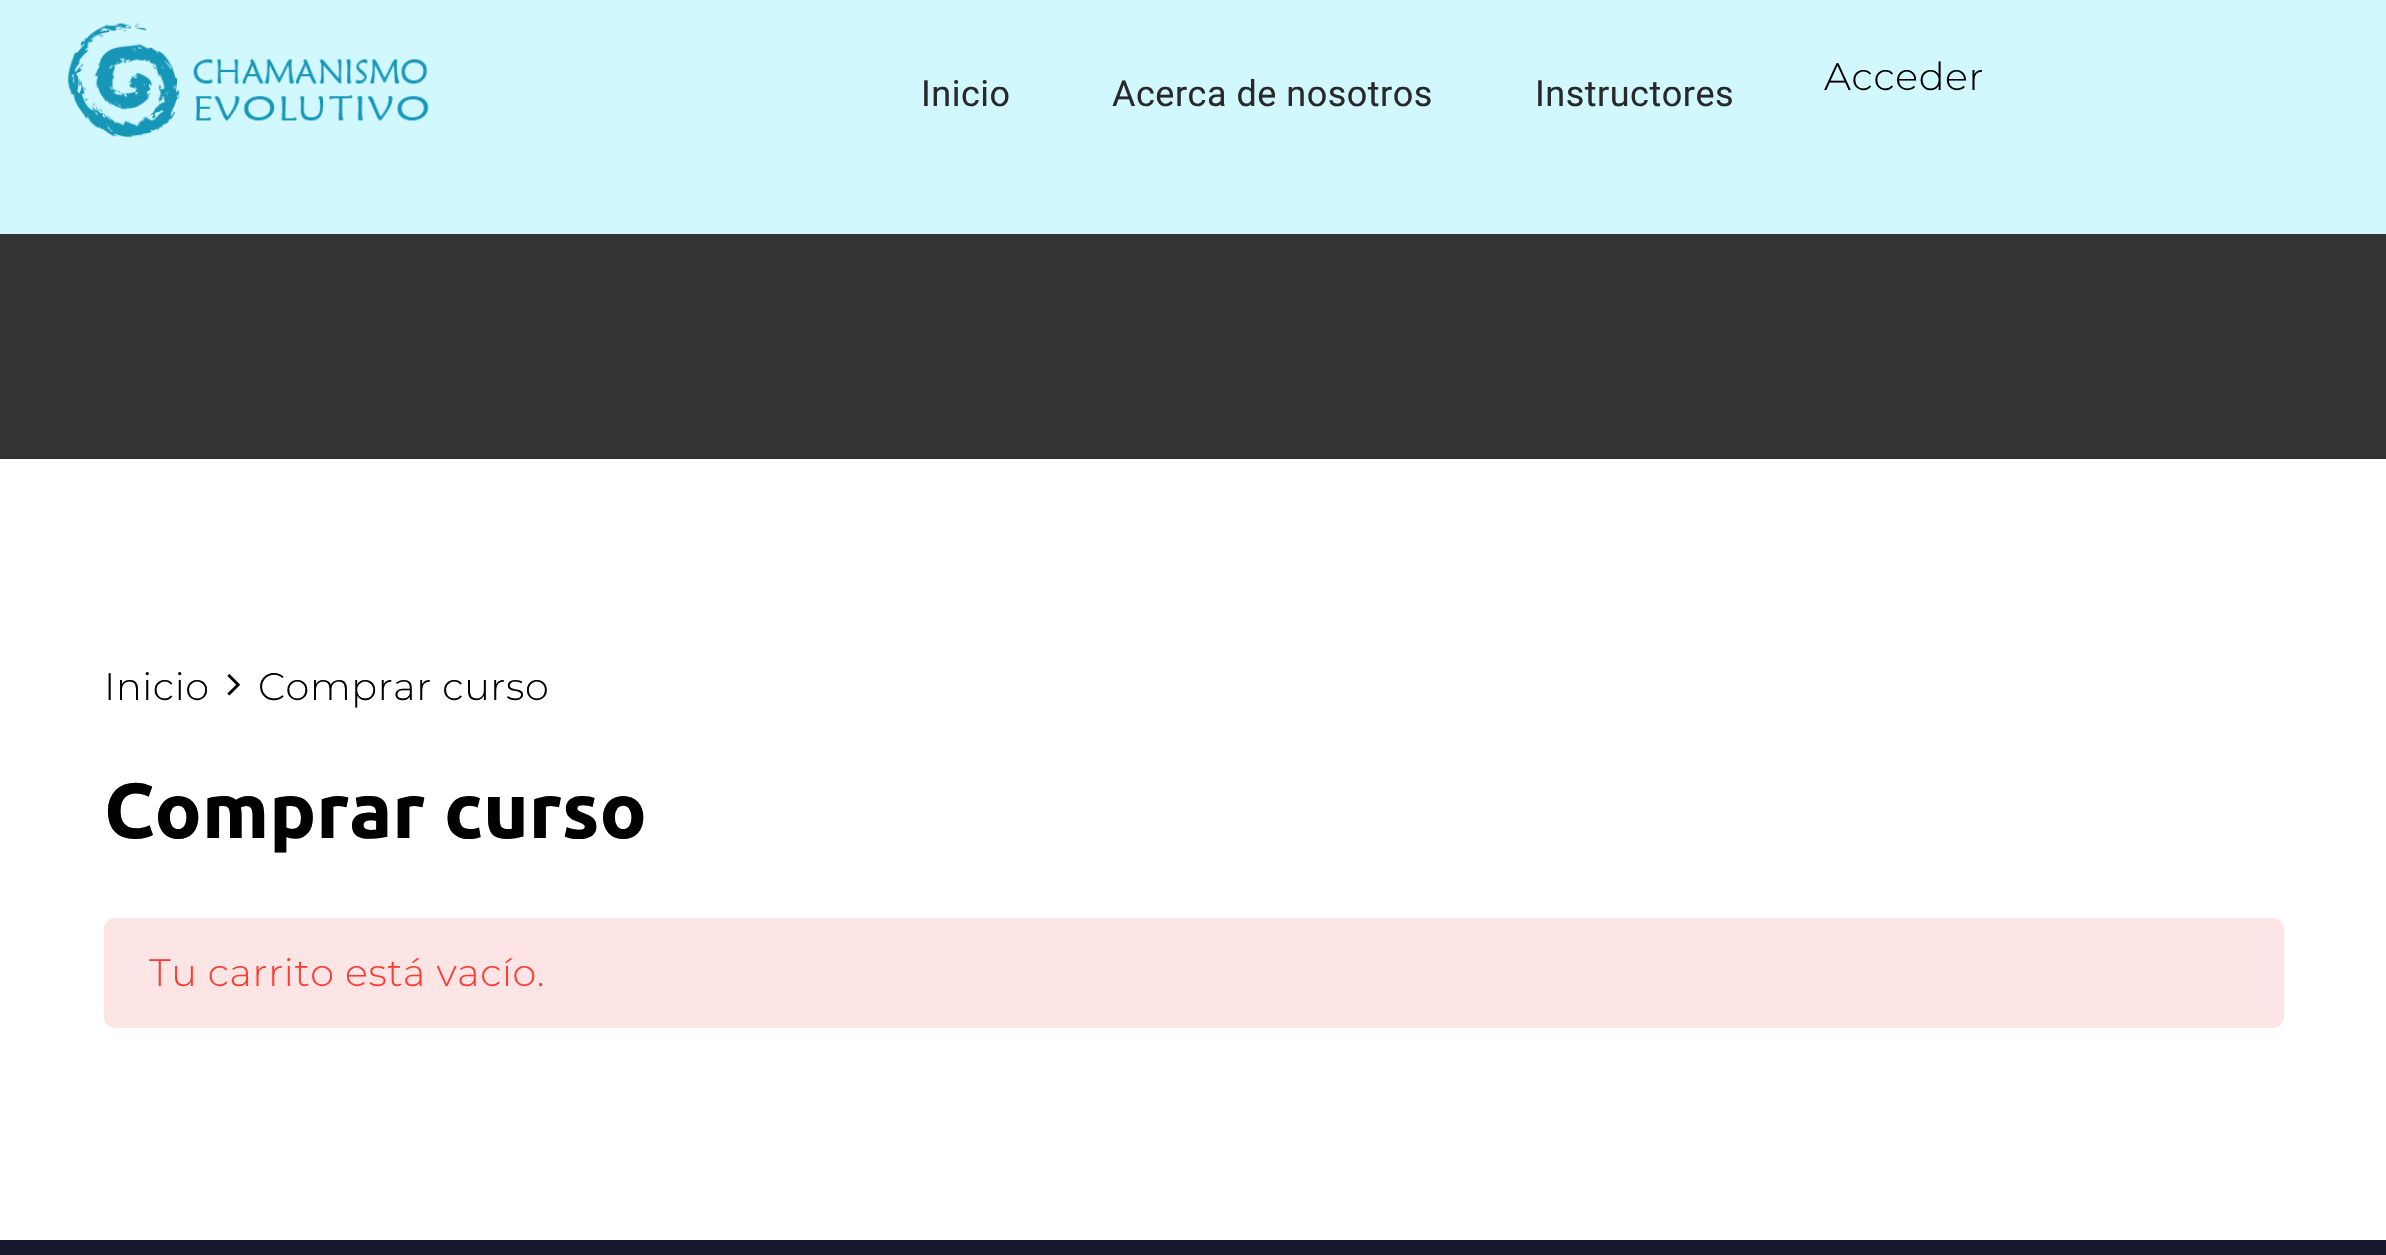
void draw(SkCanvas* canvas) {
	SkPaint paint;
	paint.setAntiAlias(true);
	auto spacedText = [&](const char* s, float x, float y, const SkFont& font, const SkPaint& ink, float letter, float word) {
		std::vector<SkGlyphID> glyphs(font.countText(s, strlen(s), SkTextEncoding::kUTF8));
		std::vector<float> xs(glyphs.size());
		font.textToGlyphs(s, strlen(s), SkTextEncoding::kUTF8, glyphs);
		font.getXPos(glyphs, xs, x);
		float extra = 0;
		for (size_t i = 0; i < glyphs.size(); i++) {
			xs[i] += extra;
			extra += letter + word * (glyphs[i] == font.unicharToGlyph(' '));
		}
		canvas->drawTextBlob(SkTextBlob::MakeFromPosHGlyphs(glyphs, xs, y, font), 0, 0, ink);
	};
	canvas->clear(0xffffffff);
	paint.setColor(0xffd1f7ff);
	canvas->drawRect(SkRect::MakeXYWH(0, 0, 2386, 234), paint);
	canvas->drawImageRect(SkImages::DeferredFromEncodedData(SkData::MakeFromFileName("img1.png")), SkRect::MakeXYWH(67, 22, 362, 116), SkSamplingOptions());
	SkFont f1(fontMgr->matchFamilyStyle("Roboto", SkFontStyle::Normal()), 36);
	f1.setSubpixel(true);
	paint.setColor(0xff292929);
	spacedText("Inicio", 921, 106, f1, paint, 0.5, 0);
	spacedText("Acerca de nosotros", 1112, 106, f1, paint, 0.5, 0);
	spacedText("Instructores", 1535, 106, f1, paint, 0.5, 0);
	SkFont f2(fontMgr->matchFamilyStyle("Montserrat", SkFontStyle(300, SkFontStyle::kNormal_Width, SkFontStyle::kUpright_Slant)), 38.25);
	f2.setSubpixel(true);
	paint.setColor(0xff000000);
	spacedText("Acceder", 1824, 90, f2, paint, 0.6, 0);
	paint.setColor(0xff333333);
	canvas->drawRect(SkRect::MakeXYWH(0, 234, 2386, 225), paint);
	paint.setColor(0xff000000);
	spacedText("Inicio", 104, 700, f2, paint, 0.6, 0);
	canvas->drawImageRect(SkImages::DeferredFromEncodedData(SkData::MakeFromFileName("img2.png")), SkRect::MakeXYWH(227, 674, 13, 22), SkSamplingOptions());
	spacedText("Comprar curso", 258, 700, f2, paint, 0.6, 0);
	SkFont f3(fontMgr->matchFamilyStyle("Ubuntu", SkFontStyle::Bold()), 78);
	f3.setSubpixel(true);
	canvas->drawString("Comprar curso", 104, 838, f3, paint);
	paint.setColor(0xfffee5e5);
	canvas->drawRoundRect(SkRect::MakeXYWH(104, 918, 2180, 110), 11, 11, paint);
	paint.setColor(0xffff3b30);
	spacedText("Tu carrito está vacío.", 149, 986, f2, paint, 0.6, 0);
	paint.setColor(0xff16172e);
	canvas->drawRect(SkRect::MakeXYWH(0, 1240, 2386, 15), paint);
}
